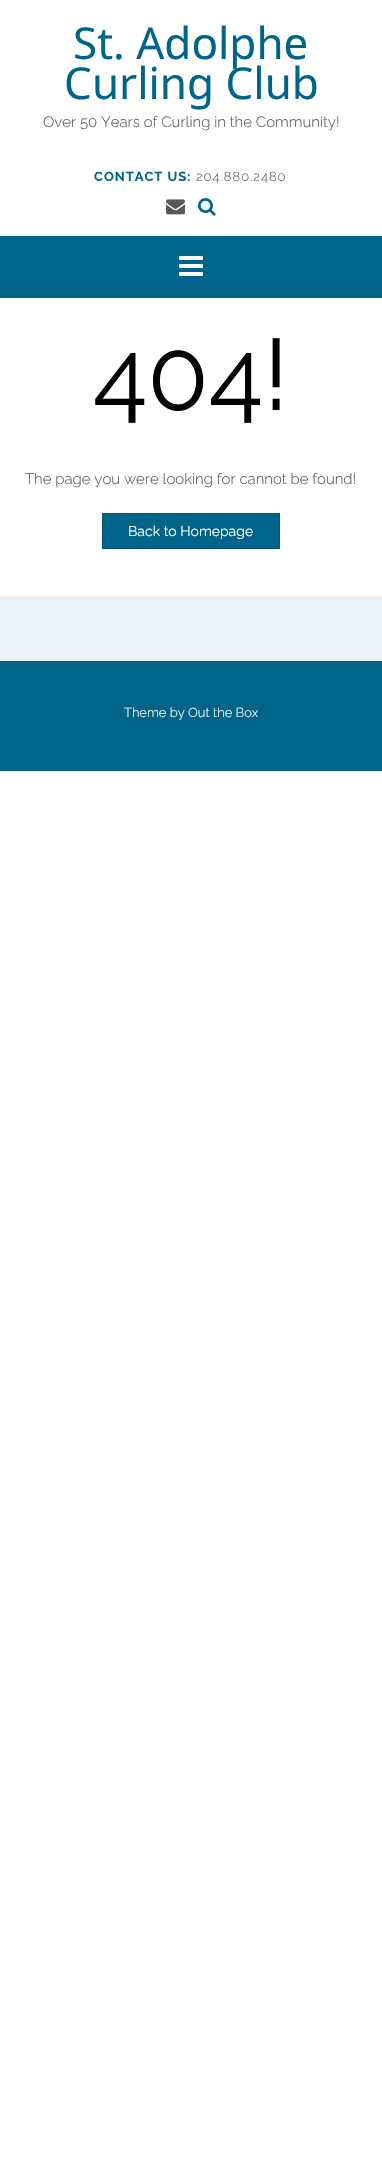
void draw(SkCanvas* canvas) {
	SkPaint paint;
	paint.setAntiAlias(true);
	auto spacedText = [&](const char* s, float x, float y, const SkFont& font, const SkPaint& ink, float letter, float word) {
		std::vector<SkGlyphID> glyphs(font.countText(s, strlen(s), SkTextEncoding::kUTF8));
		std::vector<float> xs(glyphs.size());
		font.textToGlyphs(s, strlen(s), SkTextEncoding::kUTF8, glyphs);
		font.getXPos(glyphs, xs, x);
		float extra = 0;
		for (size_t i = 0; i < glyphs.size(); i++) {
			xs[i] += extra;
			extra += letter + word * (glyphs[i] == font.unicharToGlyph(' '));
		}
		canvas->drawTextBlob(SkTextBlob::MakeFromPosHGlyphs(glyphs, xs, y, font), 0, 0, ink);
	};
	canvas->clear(0xffffffff);
	SkFont f1(fontMgr->matchFamilyStyle("Nokora", SkFontStyle::Normal()), 44);
	f1.setSubpixel(true);
	paint.setColor(0xff006489);
	canvas->drawString("St. Adolphe", 73, 59, f1, paint);
	canvas->drawString("Curling Club", 64, 99, f1, paint);
	SkFont f2(fontMgr->matchFamilyStyle("Raleway", SkFontStyle(300, SkFontStyle::kNormal_Width, SkFontStyle::kUpright_Slant)), 15);
	f2.setSubpixel(true);
	paint.setColor(0xff58585a);
	canvas->drawString("Over 50 Years of Curling in the Community!", 43, 127, f2, paint);
	SkFont f3(fontMgr->matchFamilyStyle("Raleway", SkFontStyle::Bold()), 13);
	f3.setSubpixel(true);
	paint.setColor(0xff006489);
	spacedText("CONTACT US:", 94, 181, f3, paint, 1, 0);
	SkFont f4(fontMgr->matchFamilyStyle("Raleway", SkFontStyle(300, SkFontStyle::kNormal_Width, SkFontStyle::kUpright_Slant)), 13);
	f4.setSubpixel(true);
	paint.setColor(0xff58585a);
	spacedText("204.880.2480", 196, 181, f4, paint, 1, 0);
	canvas->drawImageRect(SkImages::DeferredFromEncodedData(SkData::MakeFromFileName("img1.png")), SkRect::MakeXYWH(166, 199, 19, 16), SkSamplingOptions());
	canvas->drawImageRect(SkImages::DeferredFromEncodedData(SkData::MakeFromFileName("img2.png")), SkRect::MakeXYWH(198, 198, 18, 18), SkSamplingOptions());
	paint.setColor(0xff006489);
	canvas->drawRect(SkRect::MakeXYWH(0, 236, 382, 62), paint);
	canvas->drawImageRect(SkImages::DeferredFromEncodedData(SkData::MakeFromFileName("img3.png")), SkRect::MakeXYWH(179, 256, 24, 20), SkSamplingOptions());
	SkFont f5(fontMgr->matchFamilyStyle("Raleway", SkFontStyle::Normal()), 100);
	f5.setSubpixel(true);
	paint.setColor(0xff000000);
	canvas->drawString("404!", 93, 410, f5, paint);
	paint.setColor(0xff58585a);
	canvas->drawString("The page you were looking for cannot be found!", 25, 484, f2, paint);
	paint.setColor(0xff006489);
	canvas->drawRect(SkRect::MakeXYWH(102.5, 513.5, 177, 35), paint);
	paint.setStroke(true);
	paint.setStrokeWidth(1);
	paint.setColor(0xff005676);
	canvas->drawRect(SkRect::MakeXYWH(102.5, 513.5, 177, 35), paint);
	SkFont f6(fontMgr->matchFamilyStyle("Raleway", SkFontStyle::Normal()), 14);
	f6.setSubpixel(true);
	paint.setStroke(false);
	paint.setColor(0xffffffff);
	canvas->drawString("Back to Homepage", 128, 536, f6, paint);
	paint.setColor(0xffeaf1f7);
	canvas->drawRect(SkRect::MakeXYWH(0, 596, 382, 65), paint);
	paint.setColor(0xff006489);
	canvas->drawRect(SkRect::MakeXYWH(0, 662, 382, 109), paint);
	paint.setColor(0xff005c7e);
	canvas->drawRect(SkRect::MakeXYWH(0, 661, 382, 1), paint);
	paint.setColor(0xffffffff);
	canvas->drawString("Theme by Out the Box", 124, 717, f4, paint);
}
